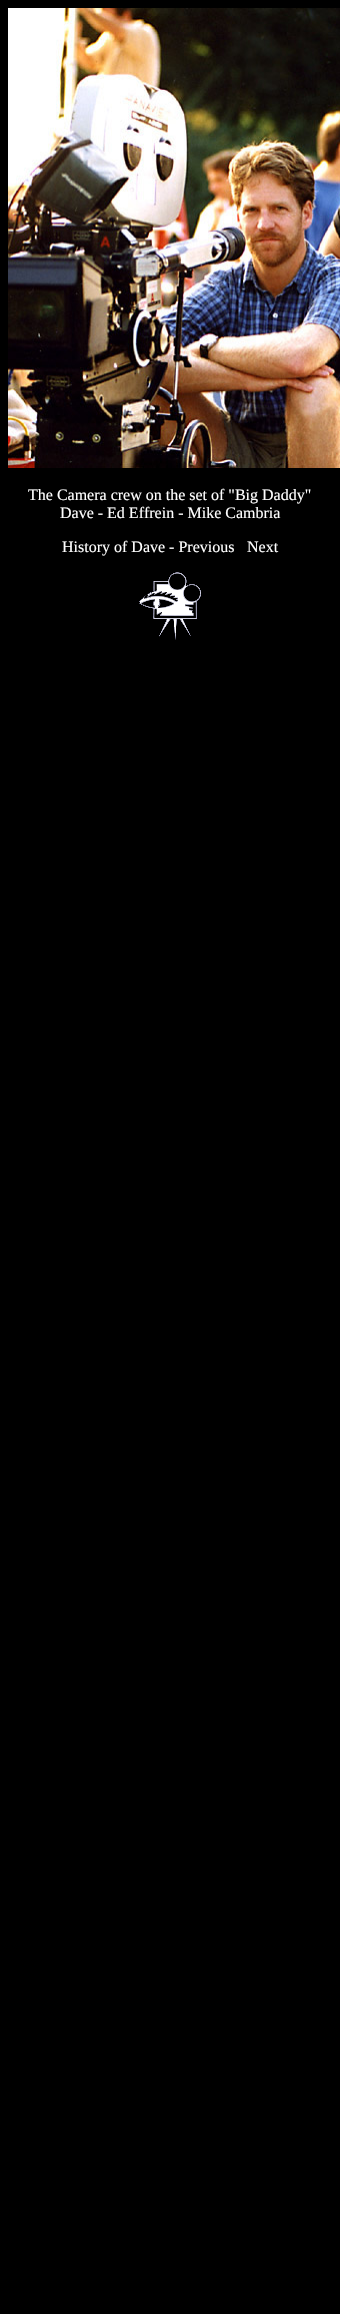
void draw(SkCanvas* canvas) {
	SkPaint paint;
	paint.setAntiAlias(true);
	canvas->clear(0xff000000);
	canvas->drawImageRect(SkImages::DeferredFromEncodedData(SkData::MakeFromFileName("img1.png")), SkRect::MakeXYWH(8, 8, 332, 460), SkSamplingOptions());
	SkFont f1(fontMgr->matchFamilyStyle("Liberation Serif", SkFontStyle::Normal()), 16);
	f1.setSubpixel(true);
	paint.setColor(0xffffffff);
	canvas->drawString("The Camera crew on the set of \"Big Daddy\"", 28, 500, f1, paint);
	canvas->drawString("Dave - Ed Effrein - Mike Cambria", 60, 518, f1, paint);
	canvas->drawString("History of Dave - Previous", 62, 552, f1, paint);
	canvas->drawString("Next", 247, 552, f1, paint);
	canvas->drawImageRect(SkImages::DeferredFromEncodedData(SkData::MakeFromFileName("img2.png")), SkRect::MakeXYWH(139, 572, 62, 68), SkSamplingOptions());
}
